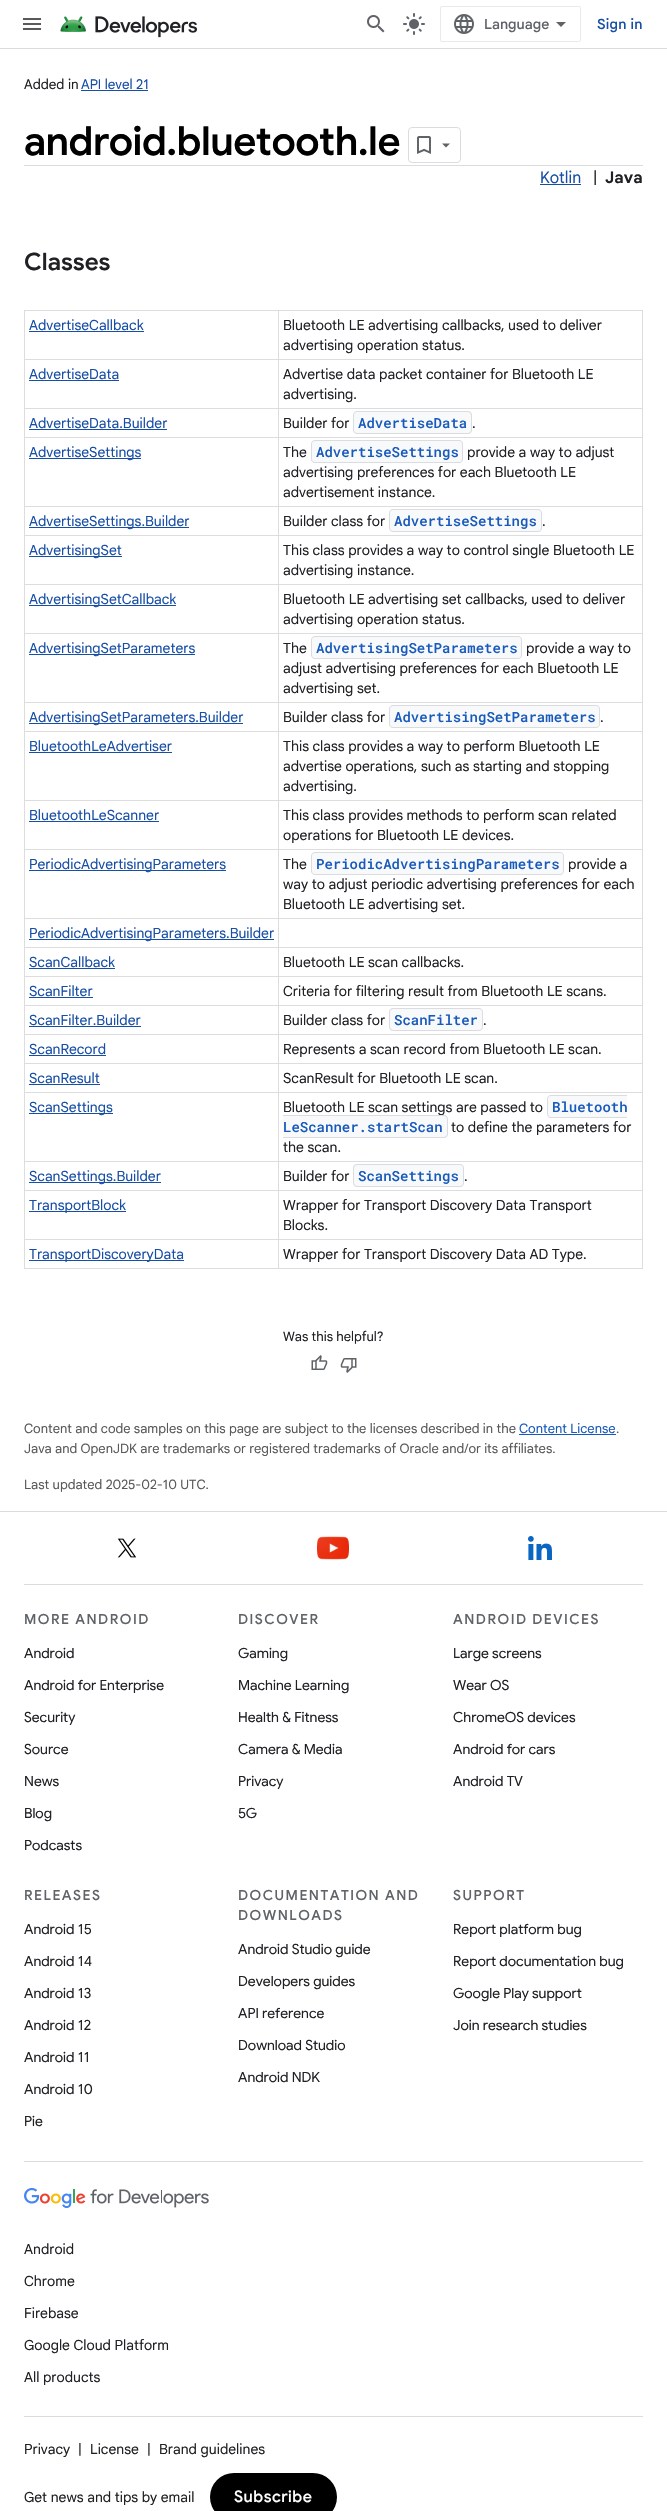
void draw(SkCanvas* canvas) {
	SkPaint paint;
	paint.setAntiAlias(true);
	auto spacedText = [&](const char* s, float x, float y, const SkFont& font, const SkPaint& ink, float letter, float word) {
		std::vector<SkGlyphID> glyphs(font.countText(s, strlen(s), SkTextEncoding::kUTF8));
		std::vector<float> xs(glyphs.size());
		font.textToGlyphs(s, strlen(s), SkTextEncoding::kUTF8, glyphs);
		font.getXPos(glyphs, xs, x);
		float extra = 0;
		for (size_t i = 0; i < glyphs.size(); i++) {
			xs[i] += extra;
			extra += letter + word * (glyphs[i] == font.unicharToGlyph(' '));
		}
		canvas->drawTextBlob(SkTextBlob::MakeFromPosHGlyphs(glyphs, xs, y, font), 0, 0, ink);
	};
	auto svgPath = [&](const char* data, bool evenOdd = false) {
		SkPath result = *SkParsePath::FromSVGString(data);
		if (evenOdd) result.setFillType(SkPathFillType::kEvenOdd);
		return result;
	};
	canvas->clear(0xffffffff);
	paint.setColor(0xffdadce0);
	canvas->drawRect(SkRect::MakeXYWH(0, 48, 667, 1), paint);
	canvas->drawImageRect(SkImages::DeferredFromEncodedData(SkData::MakeFromFileName("img1.png")), SkRect::MakeXYWH(23, 18, 18, 12), SkSamplingOptions());
	canvas->drawImageRect(SkImages::DeferredFromEncodedData(SkData::MakeFromFileName("img2.png")), SkRect::MakeXYWH(60, 16, 137, 22), SkSamplingOptions());
	canvas->drawImageRect(SkImages::DeferredFromEncodedData(SkData::MakeFromFileName("img3.png")), SkRect::MakeXYWH(367, 15, 18, 18), SkSamplingOptions());
	canvas->drawImageRect(SkImages::DeferredFromEncodedData(SkData::MakeFromFileName("img4.png")), SkRect::MakeXYWH(403, 13, 22, 22), SkSamplingOptions());
	paint.setStroke(true);
	paint.setStrokeWidth(1);
	paint.setColor(0xffe8eaed);
	canvas->drawRoundRect(SkRect::MakeXYWH(440.5, 6.5, 140, 35), 1.5, 1.5, paint);
	canvas->drawImageRect(SkImages::DeferredFromEncodedData(SkData::MakeFromFileName("img5.png")), SkRect::MakeXYWH(454, 14, 20, 20), SkSamplingOptions());
	SkFont f1(fontMgr->matchFamilyStyle("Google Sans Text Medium", SkFontStyle(500, SkFontStyle::kNormal_Width, SkFontStyle::kUpright_Slant)), 14);
	f1.setSubpixel(true);
	paint.setStroke(false);
	paint.setColor(0xff5f6368);
	canvas->drawString("Language", 484, 29, f1, paint);
	canvas->drawPath(svgPath("M561 27L556 22H566Z"), paint);
	paint.setColor(0xff174ea6);
	spacedText("Sign in", 597, 29, f1, paint, 0.25, 0);
	SkFont f2(fontMgr->matchFamilyStyle("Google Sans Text", SkFontStyle::Normal()), 13.5);
	f2.setSubpixel(true);
	paint.setColor(0xff202124);
	canvas->drawString("Added in", 24, 89, f2, paint);
	paint.setColor(0xff174ea6);
	canvas->drawString("API level 21", 81, 89, f2, paint);
	canvas->drawRect(SkRect::MakeXYWH(81, 90, 67, 1), paint);
	SkFont f3(fontMgr->matchFamilyStyle("Google Sans", SkFontStyle(600, SkFontStyle::kNormal_Width, SkFontStyle::kUpright_Slant)), 40);
	f3.setSubpixel(true);
	paint.setColor(0xff000000);
	spacedText("android.bluetooth.le", 24, 155, f3, paint, -0.5, 0);
	paint.setStroke(true);
	paint.setColor(0xffdadce0);
	canvas->drawRoundRect(SkRect::MakeXYWH(408.5, 127.5, 52, 35), 3.5, 3.5, paint);
	canvas->drawImageRect(SkImages::DeferredFromEncodedData(SkData::MakeFromFileName("img6.png")), SkRect::MakeXYWH(417, 136, 14, 18), SkSamplingOptions());
	paint.setStroke(false);
	paint.setColor(0xff5f6368);
	canvas->drawPath(svgPath("M442 143.5H450L446 147.5Z"), paint);
	paint.setColor(0xffdadce0);
	canvas->drawRect(SkRect::MakeXYWH(24, 165, 619, 1), paint);
	SkFont f4(fontMgr->matchFamilyStyle("Google Sans Text", SkFontStyle::Normal()), 16);
	f4.setSubpixel(true);
	paint.setColor(0xff174ea6);
	canvas->drawString("Kotlin", 540, 183, f4, paint);
	canvas->drawRect(SkRect::MakeXYWH(540, 184, 41, 1), paint);
	paint.setColor(0xff202124);
	canvas->drawString("|", 593, 183, f4, paint);
	SkFont f5(fontMgr->matchFamilyStyle("Google Sans Text", SkFontStyle::Bold()), 16);
	f5.setSubpixel(true);
	canvas->drawString("Java", 605, 183, f5, paint);
	SkFont f6(fontMgr->matchFamilyStyle("Google Sans", SkFontStyle(600, SkFontStyle::kNormal_Width, SkFontStyle::kUpright_Slant)), 24);
	f6.setSubpixel(true);
	canvas->drawString("Classes", 24, 270, f6, paint);
	paint.setColor(0xffdddddd);
	canvas->drawRect(SkRect::MakeXYWH(278, 310, 365, 1), paint);
	canvas->drawRect(SkRect::MakeXYWH(278, 359, 365, 1), paint);
	canvas->drawRect(SkRect::MakeXYWH(278, 408, 365, 1), paint);
	canvas->drawRect(SkRect::MakeXYWH(278, 437, 365, 1), paint);
	canvas->drawRect(SkRect::MakeXYWH(278, 506, 365, 1), paint);
	canvas->drawRect(SkRect::MakeXYWH(278, 535, 365, 1), paint);
	canvas->drawRect(SkRect::MakeXYWH(278, 584, 365, 1), paint);
	canvas->drawRect(SkRect::MakeXYWH(278, 633, 365, 1), paint);
	canvas->drawRect(SkRect::MakeXYWH(278, 702, 365, 1), paint);
	canvas->drawRect(SkRect::MakeXYWH(278, 731, 365, 1), paint);
	canvas->drawRect(SkRect::MakeXYWH(278, 800, 365, 1), paint);
	canvas->drawRect(SkRect::MakeXYWH(278, 849, 365, 1), paint);
	canvas->drawRect(SkRect::MakeXYWH(278, 918, 365, 1), paint);
	canvas->drawRect(SkRect::MakeXYWH(278, 947, 365, 1), paint);
	canvas->drawRect(SkRect::MakeXYWH(278, 976, 365, 1), paint);
	canvas->drawRect(SkRect::MakeXYWH(278, 1005, 365, 1), paint);
	canvas->drawRect(SkRect::MakeXYWH(278, 1034, 365, 1), paint);
	canvas->drawRect(SkRect::MakeXYWH(278, 1063, 365, 1), paint);
	canvas->drawRect(SkRect::MakeXYWH(278, 1092, 365, 1), paint);
	canvas->drawRect(SkRect::MakeXYWH(278, 1161, 365, 1), paint);
	canvas->drawRect(SkRect::MakeXYWH(278, 1190, 365, 1), paint);
	canvas->drawRect(SkRect::MakeXYWH(278, 1239, 365, 1), paint);
	canvas->drawRect(SkRect::MakeXYWH(642, 1239, 1, 30), paint);
	canvas->drawRect(SkRect::MakeXYWH(278, 1268, 365, 1), paint);
	canvas->drawRect(SkRect::MakeXYWH(278, 1239, 1, 30), paint);
	canvas->drawRect(SkRect::MakeXYWH(24, 1239, 255, 1), paint);
	canvas->drawRect(SkRect::MakeXYWH(278, 1190, 1, 50), paint);
	canvas->drawRect(SkRect::MakeXYWH(24, 1190, 255, 1), paint);
	canvas->drawRect(SkRect::MakeXYWH(278, 1161, 1, 30), paint);
	canvas->drawRect(SkRect::MakeXYWH(24, 1161, 255, 1), paint);
	canvas->drawRect(SkRect::MakeXYWH(278, 1092, 1, 70), paint);
	canvas->drawRect(SkRect::MakeXYWH(24, 1092, 255, 1), paint);
	canvas->drawRect(SkRect::MakeXYWH(278, 1063, 1, 30), paint);
	canvas->drawRect(SkRect::MakeXYWH(24, 1063, 255, 1), paint);
	canvas->drawRect(SkRect::MakeXYWH(278, 1034, 1, 30), paint);
	canvas->drawRect(SkRect::MakeXYWH(24, 1034, 255, 1), paint);
	canvas->drawRect(SkRect::MakeXYWH(278, 1005, 1, 30), paint);
	canvas->drawRect(SkRect::MakeXYWH(24, 1005, 255, 1), paint);
	canvas->drawRect(SkRect::MakeXYWH(278, 976, 1, 30), paint);
	canvas->drawRect(SkRect::MakeXYWH(24, 976, 255, 1), paint);
	canvas->drawRect(SkRect::MakeXYWH(278, 947, 1, 30), paint);
	canvas->drawRect(SkRect::MakeXYWH(24, 947, 255, 1), paint);
	canvas->drawRect(SkRect::MakeXYWH(278, 918, 1, 30), paint);
	canvas->drawRect(SkRect::MakeXYWH(24, 918, 255, 1), paint);
	canvas->drawRect(SkRect::MakeXYWH(278, 849, 1, 70), paint);
	canvas->drawRect(SkRect::MakeXYWH(24, 849, 255, 1), paint);
	canvas->drawRect(SkRect::MakeXYWH(278, 800, 1, 50), paint);
	canvas->drawRect(SkRect::MakeXYWH(24, 800, 255, 1), paint);
	canvas->drawRect(SkRect::MakeXYWH(278, 731, 1, 70), paint);
	canvas->drawRect(SkRect::MakeXYWH(24, 731, 255, 1), paint);
	canvas->drawRect(SkRect::MakeXYWH(278, 702, 1, 30), paint);
	canvas->drawRect(SkRect::MakeXYWH(24, 702, 255, 1), paint);
	canvas->drawRect(SkRect::MakeXYWH(278, 633, 1, 70), paint);
	canvas->drawRect(SkRect::MakeXYWH(24, 633, 255, 1), paint);
	canvas->drawRect(SkRect::MakeXYWH(278, 584, 1, 50), paint);
	canvas->drawRect(SkRect::MakeXYWH(24, 584, 255, 1), paint);
	canvas->drawRect(SkRect::MakeXYWH(278, 535, 1, 50), paint);
	canvas->drawRect(SkRect::MakeXYWH(24, 535, 255, 1), paint);
	canvas->drawRect(SkRect::MakeXYWH(278, 506, 1, 30), paint);
	canvas->drawRect(SkRect::MakeXYWH(24, 506, 255, 1), paint);
	canvas->drawRect(SkRect::MakeXYWH(278, 437, 1, 70), paint);
	canvas->drawRect(SkRect::MakeXYWH(24, 437, 255, 1), paint);
	canvas->drawRect(SkRect::MakeXYWH(278, 408, 1, 30), paint);
	canvas->drawRect(SkRect::MakeXYWH(24, 408, 255, 1), paint);
	canvas->drawRect(SkRect::MakeXYWH(278, 359, 1, 50), paint);
	canvas->drawRect(SkRect::MakeXYWH(24, 359, 255, 1), paint);
	canvas->drawRect(SkRect::MakeXYWH(278, 310, 1, 50), paint);
	canvas->drawRect(SkRect::MakeXYWH(24, 310, 255, 1), paint);
	canvas->drawRect(SkRect::MakeXYWH(24, 1268, 255, 1), paint);
	canvas->drawRect(SkRect::MakeXYWH(24, 1239, 1, 30), paint);
	canvas->drawRect(SkRect::MakeXYWH(24, 1190, 1, 50), paint);
	canvas->drawRect(SkRect::MakeXYWH(24, 1161, 1, 30), paint);
	canvas->drawRect(SkRect::MakeXYWH(24, 1092, 1, 70), paint);
	canvas->drawRect(SkRect::MakeXYWH(24, 1063, 1, 30), paint);
	canvas->drawRect(SkRect::MakeXYWH(24, 1034, 1, 30), paint);
	canvas->drawRect(SkRect::MakeXYWH(24, 1005, 1, 30), paint);
	canvas->drawRect(SkRect::MakeXYWH(24, 976, 1, 30), paint);
	canvas->drawRect(SkRect::MakeXYWH(24, 947, 1, 30), paint);
	canvas->drawRect(SkRect::MakeXYWH(24, 918, 1, 30), paint);
	canvas->drawRect(SkRect::MakeXYWH(24, 849, 1, 70), paint);
	canvas->drawRect(SkRect::MakeXYWH(24, 800, 1, 50), paint);
	canvas->drawRect(SkRect::MakeXYWH(24, 731, 1, 70), paint);
	canvas->drawRect(SkRect::MakeXYWH(24, 702, 1, 30), paint);
	canvas->drawRect(SkRect::MakeXYWH(24, 633, 1, 70), paint);
	canvas->drawRect(SkRect::MakeXYWH(24, 584, 1, 50), paint);
	canvas->drawRect(SkRect::MakeXYWH(24, 535, 1, 50), paint);
	canvas->drawRect(SkRect::MakeXYWH(24, 506, 1, 30), paint);
	canvas->drawRect(SkRect::MakeXYWH(24, 437, 1, 70), paint);
	canvas->drawRect(SkRect::MakeXYWH(24, 408, 1, 30), paint);
	canvas->drawRect(SkRect::MakeXYWH(24, 359, 1, 50), paint);
	canvas->drawRect(SkRect::MakeXYWH(24, 310, 1, 50), paint);
	SkFont f7(fontMgr->matchFamilyStyle("Google Sans Text", SkFontStyle::Normal()), 14);
	f7.setSubpixel(true);
	paint.setColor(0xff174ea6);
	canvas->drawString("AdvertiseCallback", 29, 330, f7, paint);
	canvas->drawRect(SkRect::MakeXYWH(29, 331, 115, 1), paint);
	paint.setColor(0xffdddddd);
	canvas->drawRect(SkRect::MakeXYWH(642, 1190, 1, 50), paint);
	canvas->drawRect(SkRect::MakeXYWH(642, 1161, 1, 30), paint);
	canvas->drawRect(SkRect::MakeXYWH(642, 1092, 1, 70), paint);
	canvas->drawRect(SkRect::MakeXYWH(642, 1063, 1, 30), paint);
	canvas->drawRect(SkRect::MakeXYWH(642, 1034, 1, 30), paint);
	canvas->drawRect(SkRect::MakeXYWH(642, 1005, 1, 30), paint);
	canvas->drawRect(SkRect::MakeXYWH(642, 976, 1, 30), paint);
	canvas->drawRect(SkRect::MakeXYWH(642, 947, 1, 30), paint);
	canvas->drawRect(SkRect::MakeXYWH(642, 918, 1, 30), paint);
	canvas->drawRect(SkRect::MakeXYWH(642, 849, 1, 70), paint);
	canvas->drawRect(SkRect::MakeXYWH(642, 800, 1, 50), paint);
	canvas->drawRect(SkRect::MakeXYWH(642, 731, 1, 70), paint);
	canvas->drawRect(SkRect::MakeXYWH(642, 702, 1, 30), paint);
	canvas->drawRect(SkRect::MakeXYWH(642, 633, 1, 70), paint);
	canvas->drawRect(SkRect::MakeXYWH(642, 584, 1, 50), paint);
	canvas->drawRect(SkRect::MakeXYWH(642, 535, 1, 50), paint);
	canvas->drawRect(SkRect::MakeXYWH(642, 506, 1, 30), paint);
	canvas->drawRect(SkRect::MakeXYWH(642, 437, 1, 70), paint);
	canvas->drawRect(SkRect::MakeXYWH(642, 408, 1, 30), paint);
	canvas->drawRect(SkRect::MakeXYWH(642, 359, 1, 50), paint);
	canvas->drawRect(SkRect::MakeXYWH(642, 310, 1, 50), paint);
	paint.setColor(0xff202124);
	canvas->drawString("Bluetooth LE advertising callbacks, used to deliver", 283, 330, f7, paint);
	canvas->drawString("advertising operation status.", 283, 350, f7, paint);
	paint.setColor(0xff174ea6);
	canvas->drawString("AdvertiseData", 29, 379, f7, paint);
	canvas->drawRect(SkRect::MakeXYWH(29, 380, 90, 1), paint);
	paint.setColor(0xff202124);
	canvas->drawString("Advertise data packet container for Bluetooth LE", 283, 379, f7, paint);
	canvas->drawString("advertising.", 283, 399, f7, paint);
	paint.setColor(0xff174ea6);
	canvas->drawString("AdvertiseData.Builder", 29, 428, f7, paint);
	canvas->drawRect(SkRect::MakeXYWH(29, 429, 138, 1), paint);
	paint.setColor(0xff202124);
	canvas->drawString("Builder for", 283, 428, f7, paint);
	paint.setColor(0xfff8f9fa);
	canvas->drawPath(svgPath("M357 411H434V434H357C355 434 353 432 353 430V415C353 413 355 411 357 411Z"), paint);
	paint.setColor(0xffdadce0);
	canvas->drawPath(svgPath("M357 411H434V434H357C355 434 353 432 353 430V415C353 413 355 411 357 411ZM357 412H434V433H357C355 433 354 432 354 430V415C354 413 355 412 357 412Z", true), paint);
	paint.setColor(0xfff8f9fa);
	canvas->drawPath(svgPath("M434 411H468C470 411 472 413 472 415V430C472 432 470 434 468 434H434Z"), paint);
	paint.setColor(0xffdadce0);
	canvas->drawPath(svgPath("M434 411H468C470 411 472 413 472 415V430C472 432 470 434 468 434H434ZM434 412H468C469.5 412 471 413.5 471 415V430C471 431.5 469.5 433 468 433H434Z", true), paint);
	SkFont f8(fontMgr->matchFamilyStyle("Roboto Mono", SkFontStyle(500, SkFontStyle::kNormal_Width, SkFontStyle::kUpright_Slant)), 14);
	f8.setSubpixel(true);
	paint.setColor(0xff185abc);
	canvas->drawString("AdvertiseData", 358, 428, f8, paint);
	paint.setColor(0xff202124);
	canvas->drawString(".", 472, 428, f7, paint);
	paint.setColor(0xff174ea6);
	canvas->drawRect(SkRect::MakeXYWH(29, 458, 112, 1), paint);
	canvas->drawString("AdvertiseSettings", 29, 457, f7, paint);
	paint.setColor(0xff202124);
	canvas->drawString("The", 283, 457, f7, paint);
	paint.setColor(0xfff8f9fa);
	canvas->drawPath(svgPath("M315 440H391V463H315C313 463 311 461 311 459V444C311 442 313 440 315 440Z"), paint);
	paint.setColor(0xffdadce0);
	canvas->drawPath(svgPath("M315 440H391V463H315C313 463 311 461 311 459V444C311 442 313 440 315 440ZM315 441H391V462H315C313 462 312 461 312 459V444C312 442 313 441 315 441Z", true), paint);
	paint.setColor(0xfff8f9fa);
	canvas->drawPath(svgPath("M391 440H459C461 440 463 442 463 444V459C463 461 461 463 459 463H391Z"), paint);
	paint.setColor(0xffdadce0);
	canvas->drawPath(svgPath("M391 440H459C461 440 463 442 463 444V459C463 461 461 463 459 463H391ZM391 441H459C461 441 462 442 462 444V459C462 461 461 462 459 462H391Z", true), paint);
	paint.setColor(0xff185abc);
	canvas->drawString("AdvertiseSettings", 316, 457, f8, paint);
	paint.setColor(0xff202124);
	canvas->drawString("provide a way to adjust", 467, 457, f7, paint);
	canvas->drawString("advertising preferences for each Bluetooth LE", 283, 477, f7, paint);
	canvas->drawString("advertisement instance.", 283, 497, f7, paint);
	paint.setColor(0xff174ea6);
	canvas->drawRect(SkRect::MakeXYWH(29, 527, 160, 1), paint);
	canvas->drawString("AdvertiseSettings.Builder", 29, 526, f7, paint);
	paint.setColor(0xff202124);
	canvas->drawString("Builder class for", 283, 526, f7, paint);
	paint.setColor(0xfff8f9fa);
	canvas->drawPath(svgPath("M393 509H469V532H393C391 532 389 530 389 528V513C389 511 391 509 393 509Z"), paint);
	paint.setColor(0xffdadce0);
	canvas->drawPath(svgPath("M393 509H469V532H393C391 532 389 530 389 528V513C389 511 391 509 393 509ZM393 510H469V531H393C391 531 390 530 390 528V513C390 511 391 510 393 510Z", true), paint);
	paint.setColor(0xfff8f9fa);
	canvas->drawPath(svgPath("M469 509H538C540 509 542 511 542 513V528C542 530 540 532 538 532H469Z"), paint);
	paint.setColor(0xffdadce0);
	canvas->drawPath(svgPath("M469 509H538C540 509 542 511 542 513V528C542 530 540 532 538 532H469ZM469 510H538C540 510 541 511 541 513V528C541 530 540 531 538 531H469Z", true), paint);
	paint.setColor(0xff185abc);
	canvas->drawString("AdvertiseSettings", 394, 526, f8, paint);
	paint.setColor(0xff202124);
	canvas->drawString(".", 542, 526, f7, paint);
	paint.setColor(0xff174ea6);
	canvas->drawRect(SkRect::MakeXYWH(29, 556, 93, 1), paint);
	canvas->drawString("AdvertisingSet", 29, 555, f7, paint);
	paint.setColor(0xff202124);
	canvas->drawString("This class provides a way to control single Bluetooth LE", 283, 555, f7, paint);
	canvas->drawString("advertising instance.", 283, 575, f7, paint);
	paint.setColor(0xff174ea6);
	canvas->drawRect(SkRect::MakeXYWH(29, 605, 147, 1), paint);
	canvas->drawString("AdvertisingSetCallback", 29, 604, f7, paint);
	paint.setColor(0xff202124);
	canvas->drawString("Bluetooth LE advertising set callbacks, used to deliver", 283, 604, f7, paint);
	canvas->drawString("advertising operation status.", 283, 624, f7, paint);
	paint.setColor(0xff174ea6);
	canvas->drawRect(SkRect::MakeXYWH(29, 654, 166, 1), paint);
	canvas->drawString("AdvertisingSetParameters", 29, 653, f7, paint);
	paint.setColor(0xff202124);
	canvas->drawString("The", 283, 653, f7, paint);
	paint.setColor(0xfff8f9fa);
	canvas->drawPath(svgPath("M315 636H408V659H315C313 659 311 657 311 655V640C311 638 313 636 315 636Z"), paint);
	paint.setColor(0xffdadce0);
	canvas->drawPath(svgPath("M315 636H408V659H315C313 659 311 657 311 655V640C311 638 313 636 315 636ZM315 637H408V658H315C313 658 312 657 312 655V640C312 638 313 637 315 637Z", true), paint);
	paint.setColor(0xfff8f9fa);
	canvas->drawRect(SkRect::MakeXYWH(408, 637, 25, 21), paint);
	canvas->drawPath(svgPath("M433 636H518C520 636 522 638 522 640V655C522 657 520 659 518 659H433Z"), paint);
	paint.setColor(0xffdadce0);
	canvas->drawPath(svgPath("M433 636H518C520 636 522 638 522 640V655C522 657 520 659 518 659H433ZM433 637H518C520 637 521 638 521 640V655C521 657 520 658 518 658H433Z", true), paint);
	paint.setColor(0xff185abc);
	canvas->drawString("AdvertisingSetParameters", 316, 653, f8, paint);
	paint.setColor(0xffdadce0);
	canvas->drawRect(SkRect::MakeXYWH(408, 636, 25, 1), paint);
	canvas->drawRect(SkRect::MakeXYWH(408, 658, 25, 1), paint);
	paint.setColor(0xff202124);
	canvas->drawString("provide a way to", 526, 653, f7, paint);
	canvas->drawString("adjust advertising preferences for each Bluetooth LE", 283, 673, f7, paint);
	canvas->drawString("advertising set.", 283, 693, f7, paint);
	paint.setColor(0xff174ea6);
	canvas->drawRect(SkRect::MakeXYWH(29, 723, 214, 1), paint);
	canvas->drawString("AdvertisingSetParameters.Builder", 29, 722, f7, paint);
	paint.setColor(0xff202124);
	canvas->drawString("Builder class for", 283, 722, f7, paint);
	paint.setColor(0xfff8f9fa);
	canvas->drawPath(svgPath("M393 705H486V728H393C391 728 389 726 389 724V709C389 707 391 705 393 705Z"), paint);
	paint.setColor(0xffdadce0);
	canvas->drawPath(svgPath("M393 705H486V728H393C391 728 389 726 389 724V709C389 707 391 705 393 705ZM393 706H486V727H393C391 727 390 726 390 724V709C390 707 391 706 393 706Z", true), paint);
	paint.setColor(0xfff8f9fa);
	canvas->drawRect(SkRect::MakeXYWH(486, 706, 25, 21), paint);
	canvas->drawPath(svgPath("M511 705H596C598 705 600 707 600 709V724C600 726 598 728 596 728H511Z"), paint);
	paint.setColor(0xffdadce0);
	canvas->drawPath(svgPath("M511 705H596C598 705 600 707 600 709V724C600 726 598 728 596 728H511ZM511 706H596C598 706 599 707 599 709V724C599 726 598 727 596 727H511Z", true), paint);
	paint.setColor(0xff185abc);
	canvas->drawString("AdvertisingSetParameters", 394, 722, f8, paint);
	paint.setColor(0xffdadce0);
	canvas->drawRect(SkRect::MakeXYWH(486, 705, 25, 1), paint);
	canvas->drawRect(SkRect::MakeXYWH(486, 727, 25, 1), paint);
	paint.setColor(0xff202124);
	canvas->drawString(".", 600, 722, f7, paint);
	paint.setColor(0xff174ea6);
	canvas->drawString("BluetoothLeAdvertiser", 29, 751, f7, paint);
	canvas->drawRect(SkRect::MakeXYWH(29, 752, 143, 1), paint);
	paint.setColor(0xff202124);
	canvas->drawString("This class provides a way to perform Bluetooth LE", 283, 751, f7, paint);
	canvas->drawString("advertise operations, such as starting and stopping", 283, 771, f7, paint);
	canvas->drawString("advertising.", 283, 791, f7, paint);
	paint.setColor(0xff174ea6);
	canvas->drawString("BluetoothLeScanner", 29, 820, f7, paint);
	canvas->drawRect(SkRect::MakeXYWH(29, 821, 130, 1), paint);
	paint.setColor(0xff202124);
	canvas->drawString("This class provides methods to perform scan related", 283, 820, f7, paint);
	canvas->drawString("operations for Bluetooth LE devices.", 283, 840, f7, paint);
	paint.setColor(0xff174ea6);
	canvas->drawRect(SkRect::MakeXYWH(29, 870, 197, 1), paint);
	canvas->drawString("PeriodicAdvertisingParameters", 29, 869, f7, paint);
	paint.setColor(0xff202124);
	canvas->drawString("The", 283, 869, f7, paint);
	paint.setColor(0xfff8f9fa);
	canvas->drawPath(svgPath("M315 852H383V875H315C313 875 311 873 311 871V856C311 854 313 852 315 852Z"), paint);
	paint.setColor(0xffdadce0);
	canvas->drawPath(svgPath("M315 852H383V875H315C313 875 311 873 311 871V856C311 854 313 852 315 852ZM315 853H383V874H315C313 874 312 873 312 871V856C312 854 313 853 315 853Z", true), paint);
	paint.setColor(0xfff8f9fa);
	canvas->drawRect(SkRect::MakeXYWH(383, 853, 92, 21), paint);
	canvas->drawPath(svgPath("M475 852H560C562 852 564 854 564 856V871C564 873 562 875 560 875H475Z"), paint);
	paint.setColor(0xffdadce0);
	canvas->drawPath(svgPath("M475 852H560C562 852 564 854 564 856V871C564 873 562 875 560 875H475ZM475 853H560C562 853 563 854 563 856V871C563 873 562 874 560 874H475Z", true), paint);
	paint.setColor(0xff185abc);
	canvas->drawString("PeriodicAdvertisingParameters", 316, 869, f8, paint);
	paint.setColor(0xffdadce0);
	canvas->drawRect(SkRect::MakeXYWH(383, 852, 92, 1), paint);
	canvas->drawRect(SkRect::MakeXYWH(383, 874, 92, 1), paint);
	paint.setColor(0xff202124);
	canvas->drawString("provide a", 568, 869, f7, paint);
	canvas->drawString("way to adjust periodic advertising preferences for each", 283, 889, f7, paint);
	canvas->drawString("Bluetooth LE advertising set.", 283, 909, f7, paint);
	paint.setColor(0xff174ea6);
	canvas->drawRect(SkRect::MakeXYWH(29, 939, 245, 1), paint);
	canvas->drawString("PeriodicAdvertisingParameters.Builder", 29, 938, f7, paint);
	canvas->drawString("ScanCallback", 29, 967, f7, paint);
	canvas->drawRect(SkRect::MakeXYWH(29, 968, 86, 1), paint);
	paint.setColor(0xff202124);
	canvas->drawString("Bluetooth LE scan callbacks.", 283, 967, f7, paint);
	paint.setColor(0xff174ea6);
	canvas->drawString("ScanFilter", 29, 996, f7, paint);
	canvas->drawRect(SkRect::MakeXYWH(29, 997, 64, 1), paint);
	paint.setColor(0xff202124);
	canvas->drawString("Criteria for filtering result from Bluetooth LE scans.", 283, 996, f7, paint);
	paint.setColor(0xff174ea6);
	canvas->drawString("ScanFilter.Builder", 29, 1025, f7, paint);
	canvas->drawRect(SkRect::MakeXYWH(29, 1026, 112, 1), paint);
	paint.setColor(0xff202124);
	canvas->drawString("Builder class for", 283, 1025, f7, paint);
	paint.setColor(0xfff8f9fa);
	canvas->drawPath(svgPath("M393 1008H427V1031H393C391 1031 389 1029 389 1027V1012C389 1010 391 1008 393 1008Z"), paint);
	paint.setColor(0xffdadce0);
	canvas->drawPath(svgPath("M393 1008H427V1031H393C391 1031 389 1029 389 1027V1012C389 1010 391 1008 393 1008ZM393 1009H427V1030H393C391.5 1030 390 1028.5 390 1027V1012C390 1010.5 391.5 1009 393 1009Z", true), paint);
	paint.setColor(0xfff8f9fa);
	canvas->drawPath(svgPath("M427 1008H479C481 1008 483 1010 483 1012V1027C483 1029 481 1031 479 1031H427Z"), paint);
	paint.setColor(0xffdadce0);
	canvas->drawPath(svgPath("M427 1008H479C481 1008 483 1010 483 1012V1027C483 1029 481 1031 479 1031H427ZM427 1009H479C481 1009 482 1010 482 1012V1027C482 1029 481 1030 479 1030H427Z", true), paint);
	paint.setColor(0xff185abc);
	canvas->drawString("ScanFilter", 394, 1025, f8, paint);
	paint.setColor(0xff202124);
	canvas->drawString(".", 483, 1025, f7, paint);
	paint.setColor(0xff174ea6);
	canvas->drawString("ScanRecord", 29, 1054, f7, paint);
	canvas->drawRect(SkRect::MakeXYWH(29, 1055, 77, 1), paint);
	paint.setColor(0xff202124);
	canvas->drawString("Represents a scan record from Bluetooth LE scan.", 283, 1054, f7, paint);
	paint.setColor(0xff174ea6);
	canvas->drawString("ScanResult", 29, 1083, f7, paint);
	canvas->drawRect(SkRect::MakeXYWH(29, 1084, 71, 1), paint);
	paint.setColor(0xff202124);
	canvas->drawString("ScanResult for Bluetooth LE scan.", 283, 1083, f7, paint);
	paint.setColor(0xff174ea6);
	canvas->drawRect(SkRect::MakeXYWH(29, 1113, 84, 1), paint);
	canvas->drawString("ScanSettings", 29, 1112, f7, paint);
	paint.setColor(0xff202124);
	canvas->drawString("Bluetooth LE scan settings are passed to", 283, 1112, f7, paint);
	paint.setColor(0xfff8f9fa);
	canvas->drawPath(svgPath("M551 1095H627V1118H551C549 1118 547 1116 547 1114V1099C547 1097 549 1095 551 1095Z"), paint);
	paint.setColor(0xffdadce0);
	canvas->drawPath(svgPath("M551 1095H627V1118H551C549 1118 547 1116 547 1114V1099C547 1097 549 1095 551 1095ZM551 1096H627V1117H551C549 1117 548 1116 548 1114V1099C548 1097 549 1096 551 1096Z", true), paint);
	paint.setColor(0xff185abc);
	canvas->drawString("Bluetooth", 552, 1112, f8, paint);
	paint.setColor(0xfff8f9fa);
	canvas->drawRect(SkRect::MakeXYWH(283, 1116, 76, 21), paint);
	canvas->drawRect(SkRect::MakeXYWH(359, 1115, 8, 23), paint);
	canvas->drawRect(SkRect::MakeXYWH(367, 1116, 42, 21), paint);
	canvas->drawPath(svgPath("M409 1115H444C446 1115 448 1117 448 1119V1134C448 1136 446 1138 444 1138H409Z"), paint);
	paint.setColor(0xffdadce0);
	canvas->drawPath(svgPath("M409 1115H444C446 1115 448 1117 448 1119V1134C448 1136 446 1138 444 1138H409ZM409 1116H444C445.5 1116 447 1117.5 447 1119V1134C447 1135.5 445.5 1137 444 1137H409Z", true), paint);
	paint.setColor(0xff185abc);
	canvas->drawString("LeScanner.startScan", 283, 1132, f8, paint);
	paint.setColor(0xffdadce0);
	canvas->drawRect(SkRect::MakeXYWH(283, 1115, 76, 1), paint);
	canvas->drawRect(SkRect::MakeXYWH(283, 1137, 76, 1), paint);
	canvas->drawRect(SkRect::MakeXYWH(359, 1115, 50, 1), paint);
	canvas->drawRect(SkRect::MakeXYWH(359, 1137, 50, 1), paint);
	paint.setColor(0xff202124);
	canvas->drawString("to define the parameters for", 451, 1132, f7, paint);
	canvas->drawString("the scan.", 283, 1152, f7, paint);
	paint.setColor(0xff174ea6);
	canvas->drawRect(SkRect::MakeXYWH(29, 1182, 132, 1), paint);
	canvas->drawString("ScanSettings.Builder", 29, 1181, f7, paint);
	paint.setColor(0xff202124);
	canvas->drawString("Builder for", 283, 1181, f7, paint);
	paint.setColor(0xfff8f9fa);
	canvas->drawPath(svgPath("M357 1164H392V1187H357C355 1187 353 1185 353 1183V1168C353 1166 355 1164 357 1164Z"), paint);
	paint.setColor(0xffdadce0);
	canvas->drawPath(svgPath("M357 1164H392V1187H357C355 1187 353 1185 353 1183V1168C353 1166 355 1164 357 1164ZM357 1165H392V1186H357C355.5 1186 354 1184.5 354 1183V1168C354 1166.5 355.5 1165 357 1165Z", true), paint);
	paint.setColor(0xfff8f9fa);
	canvas->drawPath(svgPath("M392 1164H460C462 1164 464 1166 464 1168V1183C464 1185 462 1187 460 1187H392Z"), paint);
	paint.setColor(0xffdadce0);
	canvas->drawPath(svgPath("M392 1164H460C462 1164 464 1166 464 1168V1183C464 1185 462 1187 460 1187H392ZM392 1165H460C462 1165 463 1166 463 1168V1183C463 1185 462 1186 460 1186H392Z", true), paint);
	paint.setColor(0xff185abc);
	canvas->drawString("ScanSettings", 358, 1181, f8, paint);
	paint.setColor(0xff202124);
	canvas->drawString(".", 464, 1181, f7, paint);
	paint.setColor(0xff174ea6);
	canvas->drawRect(SkRect::MakeXYWH(29, 1211, 97, 1), paint);
	canvas->drawString("TransportBlock", 29, 1210, f7, paint);
	paint.setColor(0xff202124);
	canvas->drawString("Wrapper for Transport Discovery Data Transport", 283, 1210, f7, paint);
	canvas->drawString("Blocks.", 283, 1230, f7, paint);
	paint.setColor(0xff174ea6);
	canvas->drawRect(SkRect::MakeXYWH(29, 1260, 155, 1), paint);
	canvas->drawString("TransportDiscoveryData", 29, 1259, f7, paint);
	paint.setColor(0xff202124);
	canvas->drawString("Wrapper for Transport Discovery Data AD Type.", 283, 1259, f7, paint);
	SkFont f9(fontMgr->matchFamilyStyle("Google Sans Text", SkFontStyle::Normal()), 13);
	f9.setSubpixel(true);
	canvas->drawString("Was this helpful?", 283, 1341, f9, paint);
	canvas->drawImageRect(SkImages::DeferredFromEncodedData(SkData::MakeFromFileName("img7.png")), SkRect::MakeXYWH(311, 1355, 17, 15), SkSamplingOptions());
	canvas->drawImageRect(SkImages::DeferredFromEncodedData(SkData::MakeFromFileName("img8.png")), SkRect::MakeXYWH(340, 1358, 17, 15), SkSamplingOptions());
	paint.setColor(0xff595959);
	canvas->drawString("Content and code samples on this page are subject to the licenses described in the", 24, 1433, f9, paint);
	paint.setColor(0xff185abc);
	canvas->drawString("Content License", 519, 1433, f9, paint);
	canvas->drawRect(SkRect::MakeXYWH(519, 1434, 97, 1), paint);
	paint.setColor(0xff595959);
	canvas->drawString(".", 616, 1433, f9, paint);
	canvas->drawString("Java and OpenJDK are trademarks or registered trademarks of Oracle and/or its affiliates.", 24, 1453, f9, paint);
	canvas->drawString("Last updated 2025-02-10 UTC.", 24, 1489, f9, paint);
	paint.setColor(0xffdadce0);
	canvas->drawRect(SkRect::MakeXYWH(0, 1511, 667, 1), paint);
	canvas->drawRect(SkRect::MakeXYWH(24, 1584, 619, 1), paint);
	canvas->drawImageRect(SkImages::DeferredFromEncodedData(SkData::MakeFromFileName("img9.png")), SkRect::MakeXYWH(117, 1538, 20, 20), SkSamplingOptions());
	canvas->drawImageRect(SkImages::DeferredFromEncodedData(SkData::MakeFromFileName("img10.png")), SkRect::MakeXYWH(317, 1536, 32, 24), SkSamplingOptions());
	canvas->drawImageRect(SkImages::DeferredFromEncodedData(SkData::MakeFromFileName("img11.png")), SkRect::MakeXYWH(528, 1536, 24, 24), SkSamplingOptions());
	canvas->drawRect(SkRect::MakeXYWH(24, 2161, 619, 1), paint);
	SkFont f10(fontMgr->matchFamilyStyle("Google Sans", SkFontStyle(500, SkFontStyle::kNormal_Width, SkFontStyle::kUpright_Slant)), 14);
	f10.setSubpixel(true);
	paint.setColor(0xff5f6368);
	spacedText("MORE ANDROID", 24, 1624, f10, paint, 1.5, 0);
	SkFont f11(fontMgr->matchFamilyStyle("Google Sans", SkFontStyle::Normal()), 14);
	f11.setSubpixel(true);
	paint.setColor(0xff202124);
	canvas->drawString("Android", 24, 1658, f11, paint);
	canvas->drawString("Android for Enterprise", 24, 1690, f11, paint);
	canvas->drawString("Security", 24, 1722, f11, paint);
	canvas->drawString("Source", 24, 1754, f11, paint);
	canvas->drawString("News", 24, 1786, f11, paint);
	canvas->drawString("Blog", 24, 1818, f11, paint);
	canvas->drawString("Podcasts", 24, 1850, f11, paint);
	paint.setColor(0xff5f6368);
	spacedText("DISCOVER", 238, 1624, f10, paint, 1.5, 0);
	paint.setColor(0xff202124);
	canvas->drawString("Gaming", 238, 1658, f11, paint);
	canvas->drawString("Machine Learning", 238, 1690, f11, paint);
	canvas->drawString("Health & Fitness", 238, 1722, f11, paint);
	canvas->drawString("Camera & Media", 238, 1754, f11, paint);
	canvas->drawString("Privacy", 238, 1786, f11, paint);
	canvas->drawString("5G", 238, 1818, f11, paint);
	paint.setColor(0xff5f6368);
	spacedText("ANDROID DEVICES", 453, 1624, f10, paint, 1.5, 0);
	paint.setColor(0xff202124);
	canvas->drawString("Large screens", 453, 1658, f11, paint);
	canvas->drawString("Wear OS", 453, 1690, f11, paint);
	canvas->drawString("ChromeOS devices", 453, 1722, f11, paint);
	canvas->drawString("Android for cars", 453, 1754, f11, paint);
	canvas->drawString("Android TV", 453, 1786, f11, paint);
	paint.setColor(0xff5f6368);
	spacedText("RELEASES", 24, 1900, f10, paint, 1.5, 0);
	paint.setColor(0xff202124);
	canvas->drawString("Android 15", 24, 1934, f11, paint);
	canvas->drawString("Android 14", 24, 1966, f11, paint);
	canvas->drawString("Android 13", 24, 1998, f11, paint);
	canvas->drawString("Android 12", 24, 2030, f11, paint);
	canvas->drawString("Android 11", 24, 2062, f11, paint);
	canvas->drawString("Android 10", 24, 2094, f11, paint);
	canvas->drawString("Pie", 24, 2126, f11, paint);
	paint.setColor(0xff5f6368);
	spacedText("DOCUMENTATION AND", 238, 1900, f10, paint, 1.5, 0);
	spacedText("DOWNLOADS", 238, 1920, f10, paint, 1.5, 0);
	paint.setColor(0xff202124);
	canvas->drawString("Android Studio guide", 238, 1954, f11, paint);
	canvas->drawString("Developers guides", 238, 1986, f11, paint);
	canvas->drawString("API reference", 238, 2018, f11, paint);
	canvas->drawString("Download Studio", 238, 2050, f11, paint);
	canvas->drawString("Android NDK", 238, 2082, f11, paint);
	paint.setColor(0xff5f6368);
	spacedText("SUPPORT", 453, 1900, f10, paint, 1.5, 0);
	paint.setColor(0xff202124);
	canvas->drawString("Report platform bug", 453, 1934, f11, paint);
	canvas->drawString("Report documentation bug", 453, 1966, f11, paint);
	canvas->drawString("Google Play support", 453, 1998, f11, paint);
	canvas->drawString("Join research studies", 453, 2030, f11, paint);
	paint.setColor(0xffdadce0);
	canvas->drawRect(SkRect::MakeXYWH(24, 2416, 619, 1), paint);
	canvas->drawImageRect(SkImages::DeferredFromEncodedData(SkData::MakeFromFileName("img12.png")), SkRect::MakeXYWH(24, 2188, 185, 20), SkSamplingOptions());
	paint.setColor(0xff202124);
	canvas->drawString("Android", 24, 2254, f7, paint);
	canvas->drawString("Chrome", 24, 2286, f7, paint);
	canvas->drawString("Firebase", 24, 2318, f7, paint);
	canvas->drawString("Google Cloud Platform", 24, 2350, f7, paint);
	canvas->drawString("All products", 24, 2382, f7, paint);
	canvas->drawString("Privacy", 24, 2454, f7, paint);
	canvas->drawString("|", 78, 2454, f7, paint);
	canvas->drawString("License", 90, 2454, f7, paint);
	canvas->drawString("|", 147, 2454, f7, paint);
	canvas->drawString("Brand guidelines", 159, 2454, f7, paint);
	canvas->drawString("Get news and tips by email", 24, 2502, f7, paint);
	paint.setColor(0xff000000);
	canvas->drawRoundRect(SkRect::MakeXYWH(210, 2473, 127, 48), 24, 24, paint);
	SkFont f12(fontMgr->matchFamilyStyle("Google Sans", SkFontStyle(500, SkFontStyle::kNormal_Width, SkFontStyle::kUpright_Slant)), 16);
	f12.setSubpixel(true);
	paint.setColor(0xffffffff);
	spacedText("Subscribe", 234, 2502, f12, paint, 0.5, 0);
}
